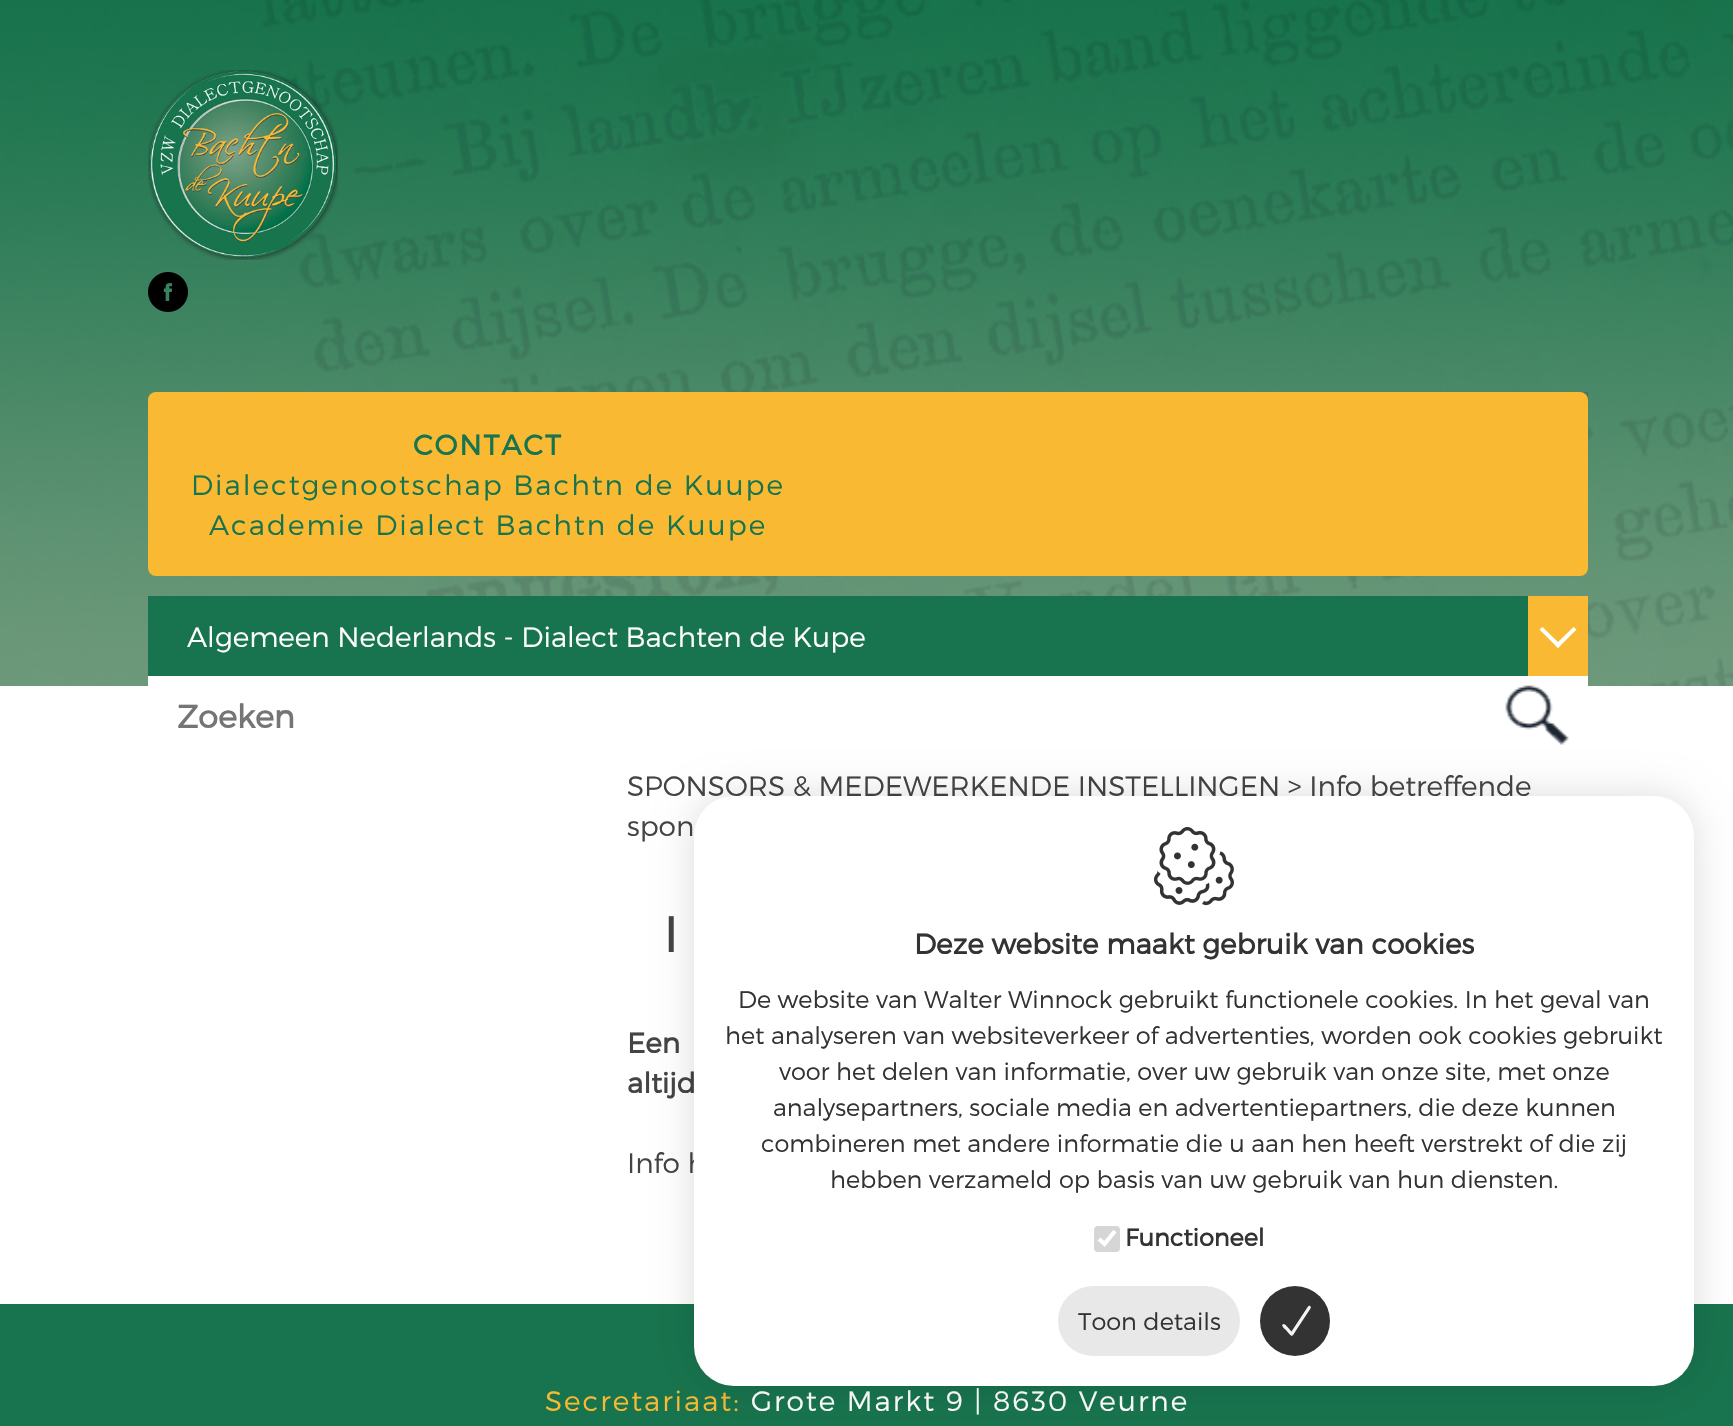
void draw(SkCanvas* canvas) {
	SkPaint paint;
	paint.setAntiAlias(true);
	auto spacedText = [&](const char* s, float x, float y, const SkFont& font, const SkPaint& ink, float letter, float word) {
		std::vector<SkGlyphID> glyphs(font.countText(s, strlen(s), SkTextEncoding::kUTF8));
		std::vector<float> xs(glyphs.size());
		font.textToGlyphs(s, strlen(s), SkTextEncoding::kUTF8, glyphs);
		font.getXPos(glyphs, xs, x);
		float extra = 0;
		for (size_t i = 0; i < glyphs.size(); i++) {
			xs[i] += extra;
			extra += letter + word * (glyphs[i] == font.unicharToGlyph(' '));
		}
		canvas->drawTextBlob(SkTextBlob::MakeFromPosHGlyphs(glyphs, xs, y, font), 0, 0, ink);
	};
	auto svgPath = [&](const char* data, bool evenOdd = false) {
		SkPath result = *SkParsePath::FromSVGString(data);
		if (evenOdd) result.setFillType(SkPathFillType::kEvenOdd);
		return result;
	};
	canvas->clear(0xffffffff);
	canvas->drawImageRect(SkImages::DeferredFromEncodedData(SkData::MakeFromFileName("img1.png")), SkRect::MakeXYWH(0, 0, 1733, 686), SkSamplingOptions());
	canvas->drawImageRect(SkImages::DeferredFromEncodedData(SkData::MakeFromFileName("img2.png")), SkRect::MakeXYWH(148, 70, 190, 190), SkSamplingOptions());
	canvas->drawImageRect(SkImages::DeferredFromEncodedData(SkData::MakeFromFileName("img3.png")), SkRect::MakeXYWH(148, 272, 40, 40), SkSamplingOptions());
	canvas->drawImageRect(SkImages::DeferredFromEncodedData(SkData::MakeFromFileName("img4.png")), SkRect::MakeXYWH(1580, 392, 8, 8), SkSamplingOptions());
	paint.setColor(0xfffab932);
	canvas->drawRoundRect(SkRect::MakeXYWH(148, 392, 1440, 184), 8, 8, paint);
	SkFont f1(fontMgr->matchFamilyStyle("Montserrat", SkFontStyle::Bold()), 28);
	f1.setSubpixel(true);
	paint.setColor(0xff18744e);
	spacedText("CONTACT", 413, 455, f1, paint, 2, 0);
	SkFont f2(fontMgr->matchFamilyStyle("Montserrat", SkFontStyle(300, SkFontStyle::kNormal_Width, SkFontStyle::kUpright_Slant)), 28);
	f2.setSubpixel(true);
	spacedText("Dialectgenootschap Bachtn de Kuupe", 191, 495, f2, paint, 2, 0);
	spacedText("Academie Dialect Bachtn de Kuupe", 209, 535, f2, paint, 2, 0);
	canvas->drawRect(SkRect::MakeXYWH(148, 596, 1380, 80), paint);
	paint.setColor(0xffffffff);
	canvas->drawString("Algemeen Nederlands - Dialect Bachten de Kupe", 187, 647, f2, paint);
	paint.setColor(0xfffab932);
	canvas->drawRect(SkRect::MakeXYWH(1528, 596, 60, 80), paint);
	paint.setColor(0xffffffff);
	canvas->drawPath(svgPath("M1576.5 629.5L1558 648L1555 645L1573.5 627Z"), paint);
	canvas->drawPath(svgPath("M1561 645L1558 648L1539.5 629.5L1542.5 627Z"), paint);
	canvas->drawRect(SkRect::MakeXYWH(148, 676, 1440, 10), paint);
	SkFont f3(fontMgr->matchFamilyStyle("Montserrat", SkFontStyle::Bold()), 32);
	f3.setSubpixel(true);
	paint.setColor(0xff757575);
	canvas->drawString("Zoeken", 177, 728, f3, paint);
	canvas->drawImageRect(SkImages::DeferredFromEncodedData(SkData::MakeFromFileName("img5.png")), SkRect::MakeXYWH(1505, 685, 64, 60), SkSamplingOptions());
	paint.setColor(0xff444444);
	canvas->drawString("SPONSORS & MEDEWERKENDE INSTELLINGEN > Info betreffende", 627, 796, f2, paint);
	canvas->drawString("spon", 627, 836, f2, paint);
	SkFont f4(fontMgr->matchFamilyStyle("Liberation Sans", SkFontStyle::Normal()), 52);
	f4.setSubpixel(true);
	canvas->drawString("I", 664, 952, f4, paint);
	canvas->drawString("Een", 627, 1053, f1, paint);
	canvas->drawString("altijd", 627, 1093, f1, paint);
	canvas->drawString("Info h", 627, 1173, f2, paint);
	paint.setColor(0xff18744e);
	canvas->drawRect(SkRect::MakeXYWH(0, 1304, 1733, 122), paint);
	paint.setColor(0xfffab932);
	spacedText("Secretariaat:", 545, 1411, f2, paint, 2, 0);
	paint.setColor(0xffffffff);
	spacedText("Grote Markt 9 | 8630 Veurne", 751, 1411, f2, paint, 2, 0);
	paint.setColor(0x26000000);
	paint.setMaskFilter(SkMaskFilter::MakeBlur(kNormal_SkBlurStyle, 20));
	canvas->drawRoundRect(SkRect::MakeXYWH(696, 798, 996, 586), 38, 38, paint);
	paint.setMaskFilter(nullptr);
	paint.setColor(0xffffffff);
	canvas->drawRoundRect(SkRect::MakeXYWH(694, 796, 1000, 590), 40, 40, paint);
	canvas->drawImageRect(SkImages::DeferredFromEncodedData(SkData::MakeFromFileName("img6.png")), SkRect::MakeXYWH(1154, 827, 80, 79), SkSamplingOptions());
	paint.setColor(0xff333333);
	canvas->drawString("Deze website maakt gebruik van cookies", 914, 954, f1, paint);
	SkFont f5(fontMgr->matchFamilyStyle("Montserrat", SkFontStyle(300, SkFontStyle::kNormal_Width, SkFontStyle::kUpright_Slant)), 24);
	f5.setSubpixel(true);
	canvas->drawString("De website van Walter Winnock gebruikt functionele cookies. In het geval van", 738, 1008, f5, paint);
	canvas->drawString("het analyseren van websiteverkeer of advertenties, worden ook cookies gebruikt", 725, 1044, f5, paint);
	canvas->drawString("voor het delen van informatie, over uw gebruik van onze site, met onze", 779, 1080, f5, paint);
	canvas->drawString("analysepartners, sociale media en advertentiepartners, die deze kunnen", 773, 1116, f5, paint);
	canvas->drawString("combineren met andere informatie die u aan hen heeft verstrekt of die zij", 761, 1152, f5, paint);
	canvas->drawString("hebben verzameld op basis van uw gebruik van hun diensten.", 830, 1188, f5, paint);
	paint.setColor(0xffd6d6d6);
	canvas->drawRoundRect(SkRect::MakeXYWH(1094, 1226, 26, 26), 4, 4, paint);
	paint.setStroke(true);
	paint.setStrokeWidth(4.2);
	paint.setColor(0xffffffff);
	canvas->drawPath(svgPath("M1099 1239L1104.5 1244L1115 1231"), paint);
	SkFont f6(fontMgr->matchFamilyStyle("Montserrat", SkFontStyle::Bold()), 24);
	f6.setSubpixel(true);
	paint.setStroke(false);
	paint.setColor(0xff333333);
	canvas->drawString("Functioneel", 1125, 1246, f6, paint);
	paint.setColor(0xffe8e8e8);
	canvas->drawRoundRect(SkRect::MakeXYWH(1058, 1286, 182, 70), 35, 35, paint);
	paint.setColor(0xff333333);
	canvas->drawString("Toon details", 1078, 1330, f5, paint);
	canvas->drawCircle(1295, 1321, 35, paint);
	paint.setColor(0xfff3f3f4);
	canvas->drawPath(svgPath("M1310 1306C1309.5 1305.5 1308.5 1305.5 1308 1306.5L1291.5 1331.5L1287.5 1327C1286.5 1326 1284.5 1322.5 1282.5 1324.5C1281.5 1326.5 1284.5 1329 1285.5 1329.5L1288 1332.5C1292.5 1337.5 1292 1337 1296 1330.5L1310.5 1308.5C1311 1307.5 1311 1306.5 1310 1306Z"), paint);
}
